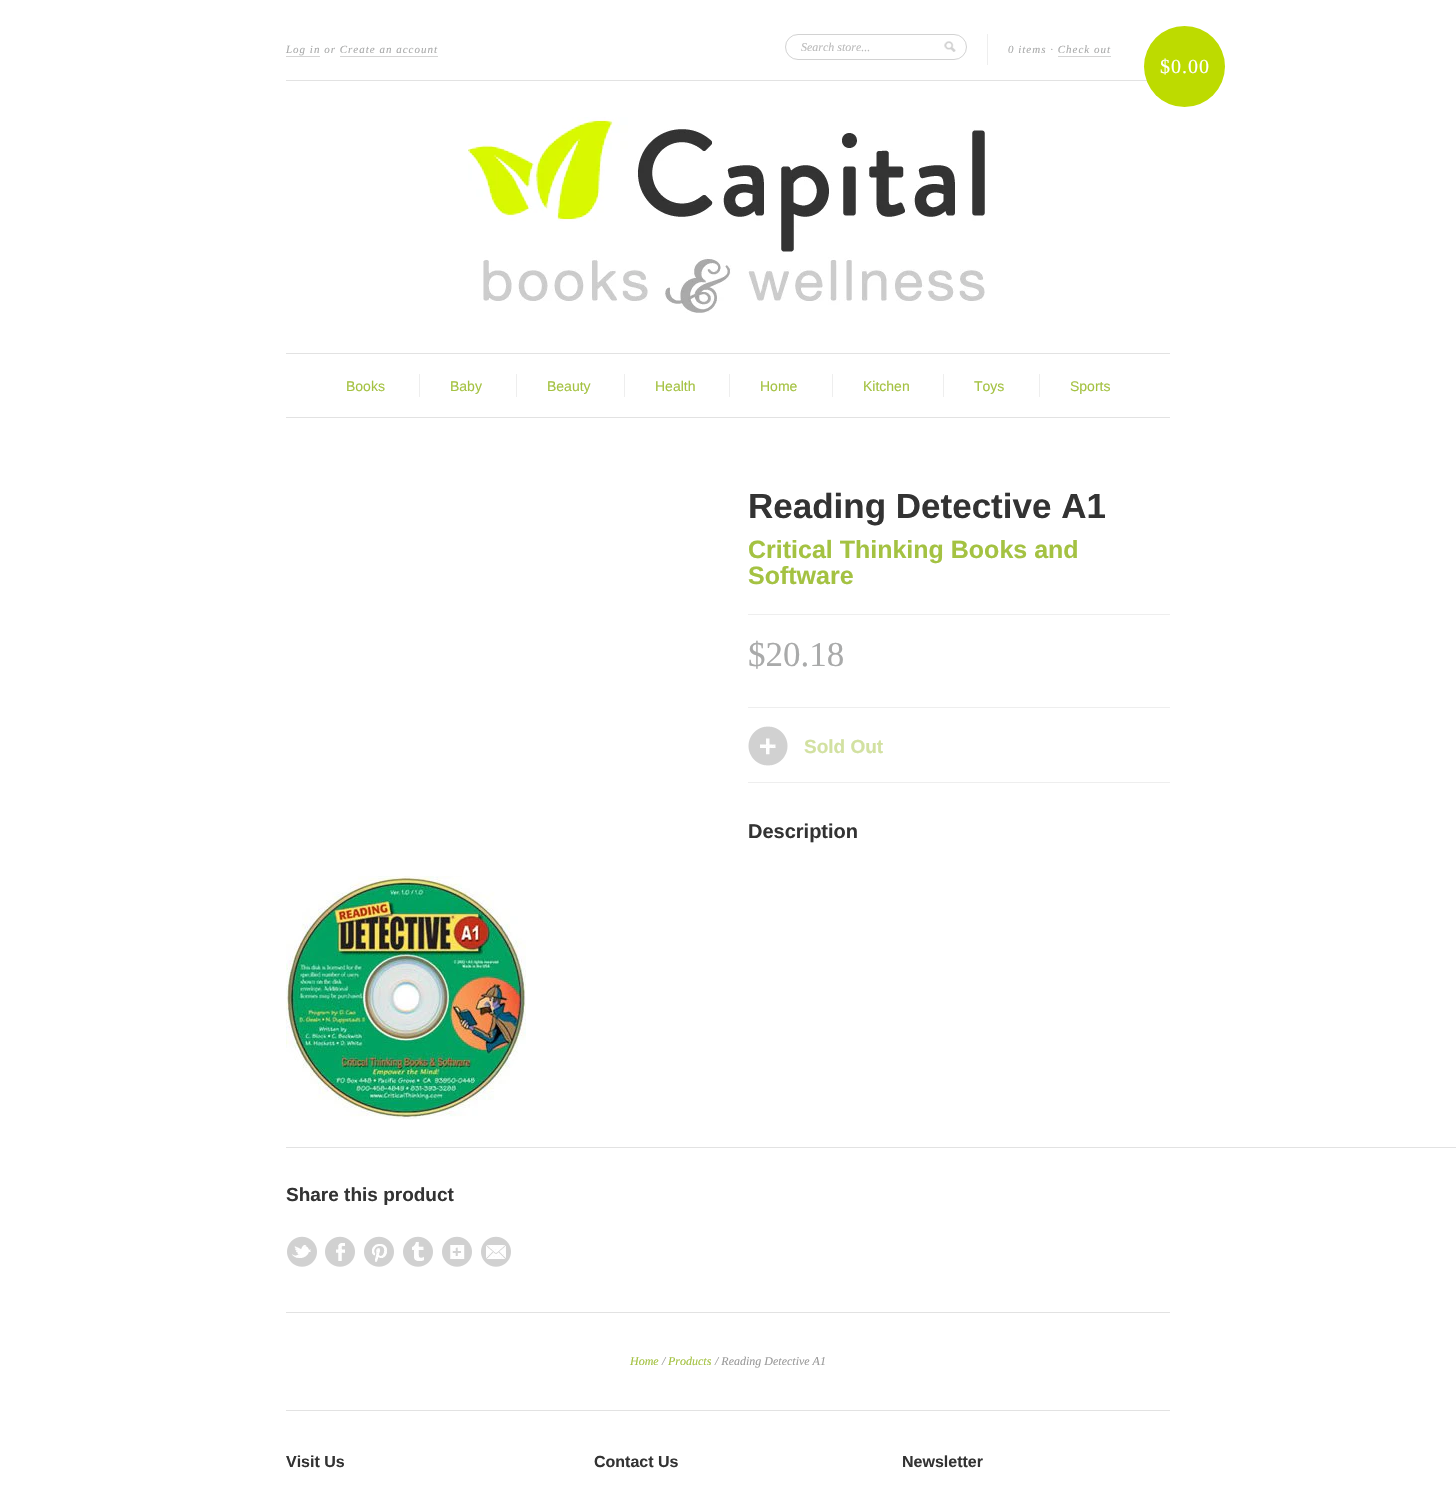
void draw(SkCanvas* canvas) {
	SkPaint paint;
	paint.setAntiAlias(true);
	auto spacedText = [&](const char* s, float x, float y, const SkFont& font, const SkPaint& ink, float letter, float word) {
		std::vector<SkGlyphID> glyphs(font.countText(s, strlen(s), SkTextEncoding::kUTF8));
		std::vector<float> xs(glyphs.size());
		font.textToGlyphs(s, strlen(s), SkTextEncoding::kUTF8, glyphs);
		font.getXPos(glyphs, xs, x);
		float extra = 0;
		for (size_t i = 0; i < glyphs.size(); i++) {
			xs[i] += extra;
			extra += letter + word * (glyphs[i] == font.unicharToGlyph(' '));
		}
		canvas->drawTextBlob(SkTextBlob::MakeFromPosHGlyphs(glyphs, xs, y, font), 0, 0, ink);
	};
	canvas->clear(0xffffffff);
	paint.setColor(0xffe2e2e2);
	canvas->drawRect(SkRect::MakeXYWH(286, 417, 884, 1), paint);
	canvas->drawRect(SkRect::MakeXYWH(286, 80, 861, 1), paint);
	SkFont f1(fontMgr->matchFamilyStyle("Liberation Serif", SkFontStyle::Italic()), 11);
	f1.setSubpixel(true);
	paint.setColor(0xffa9aaaa);
	spacedText("Log in or Create an account", 286, 53, f1, paint, 1, 0);
	paint.setColor(0xffd4d4d4);
	canvas->drawRect(SkRect::MakeXYWH(286, 56, 34, 1), paint);
	canvas->drawRect(SkRect::MakeXYWH(340, 56, 98, 1), paint);
	paint.setStroke(true);
	paint.setStrokeWidth(1);
	paint.setColor(0xffd2d2d2);
	canvas->drawRoundRect(SkRect::MakeXYWH(785.5, 34.5, 181, 25), 12.5, 12.5, paint);
	SkFont f2(fontMgr->matchFamilyStyle("Liberation Serif", SkFontStyle::Italic()), 12);
	f2.setSubpixel(true);
	paint.setStroke(false);
	paint.setColor(0xffbbbbbb);
	canvas->drawString("Search store...", 801, 51, f2, paint);
	canvas->drawImageRect(SkImages::DeferredFromEncodedData(SkData::MakeFromFileName("img1.png")), SkRect::MakeXYWH(944, 41, 12, 11), SkSamplingOptions());
	paint.setColor(0xffeeeeee);
	canvas->drawRect(SkRect::MakeXYWH(987, 34, 1, 31), paint);
	paint.setColor(0xffa9aaaa);
	spacedText("0 items · Check out", 1008, 53, f1, paint, 1, 0);
	paint.setColor(0xffd4d4d4);
	canvas->drawRect(SkRect::MakeXYWH(1058, 56, 53, 1), paint);
	paint.setColor(0xffbddb00);
	canvas->drawCircle(1184.5, 66.5, 40.5, paint);
	SkFont f3(fontMgr->matchFamilyStyle("Liberation Serif", SkFontStyle::Normal()), 20);
	f3.setSubpixel(true);
	paint.setColor(0xffffffff);
	spacedText("$0.00", 1160, 73, f3, paint, 1, 0);
	canvas->drawImageRect(SkImages::DeferredFromEncodedData(SkData::MakeFromFileName("img2.png")), SkRect::MakeXYWH(468, 117, 517, 196), SkSamplingOptions());
	paint.setColor(0xffe2e2e2);
	canvas->drawRect(SkRect::MakeXYWH(286, 353, 884, 1), paint);
	SkFont f4(fontMgr->matchFamilyStyle("Liberation Sans", SkFontStyle::Normal()), 14);
	f4.setSubpixel(true);
	paint.setColor(0xffa4c242);
	canvas->drawString("Books", 346, 391, f4, paint);
	paint.setColor(0xffeeeeee);
	canvas->drawRect(SkRect::MakeXYWH(419, 374, 1, 23), paint);
	paint.setColor(0xffa4c242);
	canvas->drawString("Baby", 450, 391, f4, paint);
	paint.setColor(0xffeeeeee);
	canvas->drawRect(SkRect::MakeXYWH(516, 374, 1, 23), paint);
	paint.setColor(0xffa4c242);
	canvas->drawString("Beauty", 547, 391, f4, paint);
	paint.setColor(0xffeeeeee);
	canvas->drawRect(SkRect::MakeXYWH(624, 374, 1, 23), paint);
	paint.setColor(0xffa4c242);
	canvas->drawString("Health", 655, 391, f4, paint);
	paint.setColor(0xffeeeeee);
	canvas->drawRect(SkRect::MakeXYWH(729, 374, 1, 23), paint);
	paint.setColor(0xffa4c242);
	canvas->drawString("Home", 760, 391, f4, paint);
	paint.setColor(0xffeeeeee);
	canvas->drawRect(SkRect::MakeXYWH(832, 374, 1, 23), paint);
	paint.setColor(0xffa4c242);
	canvas->drawString("Kitchen", 863, 391, f4, paint);
	paint.setColor(0xffeeeeee);
	canvas->drawRect(SkRect::MakeXYWH(943, 374, 1, 23), paint);
	paint.setColor(0xffa4c242);
	canvas->drawString("Toys", 974, 391, f4, paint);
	paint.setColor(0xffeeeeee);
	canvas->drawRect(SkRect::MakeXYWH(1039, 374, 1, 23), paint);
	paint.setColor(0xffa4c242);
	canvas->drawString("Sports", 1070, 391, f4, paint);
	paint.setColor(0xffeeeeee);
	canvas->drawRect(SkRect::MakeXYWH(748, 614, 422, 1), paint);
	SkFont f5(fontMgr->matchFamilyStyle("Liberation Sans", SkFontStyle::Bold()), 35);
	f5.setSubpixel(true);
	paint.setColor(0xff333333);
	canvas->drawString("Reading Detective A1", 748, 518, f5, paint);
	SkFont f6(fontMgr->matchFamilyStyle("Liberation Sans", SkFontStyle::Bold()), 25);
	f6.setSubpixel(true);
	paint.setColor(0xffa4c242);
	canvas->drawString("Critical Thinking Books and", 748, 558, f6, paint);
	canvas->drawString("Software", 748, 584, f6, paint);
	paint.setColor(0xffeeeeee);
	canvas->drawRect(SkRect::MakeXYWH(748, 707, 422, 1), paint);
	SkFont f7(fontMgr->matchFamilyStyle("Liberation Serif", SkFontStyle::Normal()), 35);
	f7.setSubpixel(true);
	paint.setColor(0xffa9aaaa);
	canvas->drawString("$20.18", 748, 666, f7, paint);
	paint.setColor(0xffeeeeee);
	canvas->drawRect(SkRect::MakeXYWH(748, 782, 422, 1), paint);
	canvas->drawImageRect(SkImages::DeferredFromEncodedData(SkData::MakeFromFileName("img3.png")), SkRect::MakeXYWH(748, 726, 40, 40), SkSamplingOptions());
	SkFont f8(fontMgr->matchFamilyStyle("Liberation Sans", SkFontStyle::Bold()), 19);
	f8.setSubpixel(true);
	paint.setColor(0xffd2e1a1);
	canvas->drawString("Sold Out", 804, 753, f8, paint);
	SkFont f9(fontMgr->matchFamilyStyle("Liberation Sans", SkFontStyle::Bold()), 20);
	f9.setSubpixel(true);
	paint.setColor(0xff333333);
	canvas->drawString("Description", 748, 838, f9, paint);
	canvas->drawImageRect(SkImages::DeferredFromEncodedData(SkData::MakeFromFileName("img4.png")), SkRect::MakeXYWH(286, 876, 240, 243), SkSamplingOptions());
	paint.setColor(0xffe2e2e2);
	canvas->drawRect(SkRect::MakeXYWH(286, 1147, 1170, 1), paint);
	paint.setColor(0xff333333);
	canvas->drawString("Share this product", 286, 1201, f8, paint);
	canvas->drawImageRect(SkImages::DeferredFromEncodedData(SkData::MakeFromFileName("img5.png")), SkRect::MakeXYWH(287, 1236, 30, 31), SkSamplingOptions());
	canvas->drawImageRect(SkImages::DeferredFromEncodedData(SkData::MakeFromFileName("img6.png")), SkRect::MakeXYWH(325, 1236, 30, 31), SkSamplingOptions());
	canvas->drawImageRect(SkImages::DeferredFromEncodedData(SkData::MakeFromFileName("img7.png")), SkRect::MakeXYWH(364, 1236, 30, 31), SkSamplingOptions());
	canvas->drawImageRect(SkImages::DeferredFromEncodedData(SkData::MakeFromFileName("img8.png")), SkRect::MakeXYWH(403, 1236, 30, 31), SkSamplingOptions());
	canvas->drawImageRect(SkImages::DeferredFromEncodedData(SkData::MakeFromFileName("img9.png")), SkRect::MakeXYWH(442, 1236, 30, 31), SkSamplingOptions());
	canvas->drawImageRect(SkImages::DeferredFromEncodedData(SkData::MakeFromFileName("img10.png")), SkRect::MakeXYWH(481, 1236, 30, 31), SkSamplingOptions());
	paint.setColor(0xffe2e2e2);
	canvas->drawRect(SkRect::MakeXYWH(286, 1312, 884, 1), paint);
	paint.setColor(0xffa4c242);
	canvas->drawString("Home", 630, 1365, f2, paint);
	paint.setColor(0xff999999);
	canvas->drawString("/", 662, 1365, f2, paint);
	paint.setColor(0xffa4c242);
	canvas->drawString("Products", 668, 1365, f2, paint);
	paint.setColor(0xff999999);
	canvas->drawString("/ Reading Detective A1", 715, 1365, f2, paint);
	paint.setColor(0xffe2e2e2);
	canvas->drawRect(SkRect::MakeXYWH(286, 1410, 884, 1), paint);
	SkFont f10(fontMgr->matchFamilyStyle("Liberation Sans", SkFontStyle::Bold()), 16);
	f10.setSubpixel(true);
	paint.setColor(0xff333333);
	canvas->drawString("Visit Us", 286, 1467, f10, paint);
	canvas->drawString("Contact Us", 594, 1467, f10, paint);
	canvas->drawString("Newsletter", 902, 1467, f10, paint);
}
